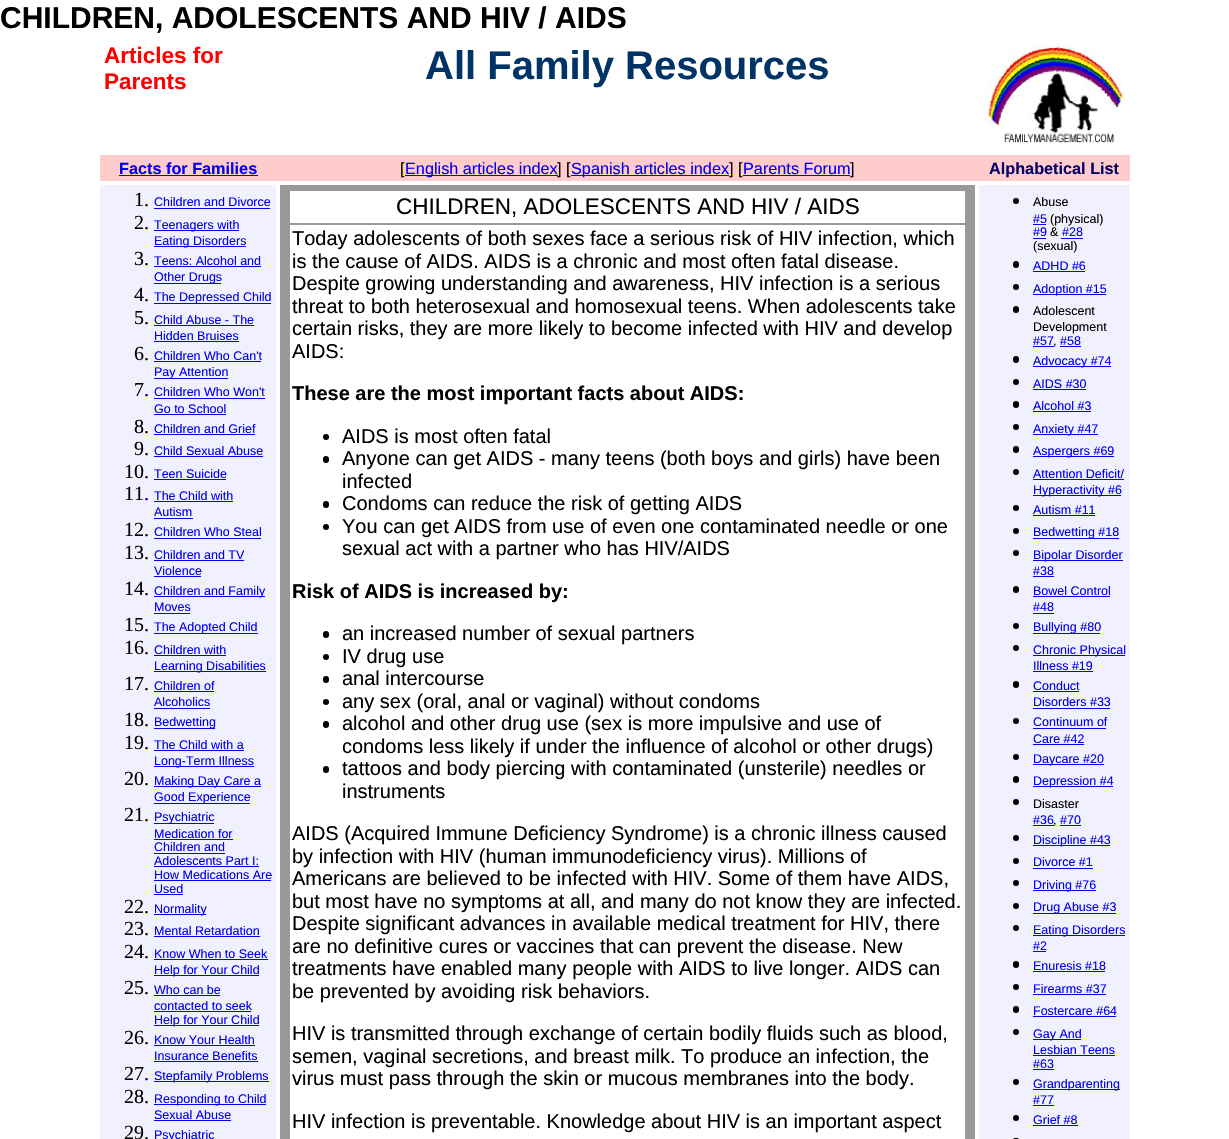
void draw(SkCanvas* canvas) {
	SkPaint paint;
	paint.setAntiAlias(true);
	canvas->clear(0xffffffff);
	SkFont f1(fontMgr->matchFamilyStyle("Liberation Sans", SkFontStyle::Bold()), 30);
	f1.setSubpixel(true);
	paint.setColor(0xff000000);
	canvas->drawString("CHILDREN, ADOLESCENTS AND HIV / AIDS", 0, 28, f1, paint);
	SkFont f2(fontMgr->matchFamilyStyle("Liberation Sans", SkFontStyle::Bold()), 22.5);
	f2.setSubpixel(true);
	paint.setColor(0xffff0000);
	canvas->drawString("Articles for", 104, 63, f2, paint);
	canvas->drawString("Parents", 104, 89, f2, paint);
	SkFont f3(fontMgr->matchFamilyStyle("Liberation Sans", SkFontStyle::Bold()), 40);
	f3.setSubpixel(true);
	paint.setColor(0xff003366);
	canvas->drawString("All Family Resources", 425, 79, f3, paint);
	canvas->drawImageRect(SkImages::DeferredFromEncodedData(SkData::MakeFromFileName("img1.png")), SkRect::MakeXYWH(983, 44, 142, 99), SkSamplingOptions());
	paint.setColor(0xffffcccc);
	canvas->drawRect(SkRect::MakeXYWH(100, 155, 1030, 26), paint);
	SkFont f4(fontMgr->matchFamilyStyle("Liberation Sans", SkFontStyle::Bold()), 16.25);
	f4.setSubpixel(true);
	paint.setColor(0xff0000ee);
	canvas->drawString("Facts for Families", 119, 174, f4, paint);
	canvas->drawRect(SkRect::MakeXYWH(119, 175, 139, 1), paint);
	SkFont f5(fontMgr->matchFamilyStyle("Liberation Sans", SkFontStyle::Normal()), 16.25);
	f5.setSubpixel(true);
	paint.setColor(0xff000000);
	canvas->drawString("[", 400, 174, f5, paint);
	paint.setColor(0xff0000ee);
	canvas->drawRect(SkRect::MakeXYWH(405, 175, 153, 1), paint);
	canvas->drawString("English articles index", 405, 174, f5, paint);
	paint.setColor(0xff000000);
	canvas->drawString("] [", 557, 174, f5, paint);
	paint.setColor(0xff0000ee);
	canvas->drawRect(SkRect::MakeXYWH(571, 175, 158, 1), paint);
	canvas->drawString("Spanish articles index", 571, 174, f5, paint);
	paint.setColor(0xff000000);
	canvas->drawString("] [", 729, 174, f5, paint);
	paint.setColor(0xff0000ee);
	canvas->drawRect(SkRect::MakeXYWH(743, 175, 107, 1), paint);
	canvas->drawString("Parents Forum", 743, 174, f5, paint);
	paint.setColor(0xff000000);
	canvas->drawString("]", 850, 174, f5, paint);
	paint.setColor(0xff000066);
	canvas->drawString("Alphabetical List", 989, 174, f4, paint);
	paint.setColor(0xfff0f0ff);
	canvas->drawRect(SkRect::MakeXYWH(100, 185, 176, 954), paint);
	SkFont f6(fontMgr->matchFamilyStyle("Liberation Serif", SkFontStyle::Normal()), 20);
	f6.setSubpixel(true);
	paint.setColor(0xff000000);
	canvas->drawString("1.", 134, 206, f6, paint);
	SkFont f7(fontMgr->matchFamilyStyle("Liberation Sans", SkFontStyle::Normal()), 12.5);
	f7.setSubpixel(true);
	paint.setColor(0xff0000ee);
	canvas->drawString("Children and Divorce", 154, 206, f7, paint);
	canvas->drawRect(SkRect::MakeXYWH(154, 208, 116, 1), paint);
	paint.setColor(0xff000000);
	canvas->drawString("2.", 134, 229, f6, paint);
	paint.setColor(0xff0000ee);
	canvas->drawRect(SkRect::MakeXYWH(154, 230, 85, 1), paint);
	canvas->drawString("Teenagers with", 154, 229, f7, paint);
	canvas->drawRect(SkRect::MakeXYWH(154, 246, 92, 1), paint);
	canvas->drawString("Eating Disorders", 154, 245, f7, paint);
	paint.setColor(0xff000000);
	canvas->drawString("3.", 134, 265, f6, paint);
	paint.setColor(0xff0000ee);
	canvas->drawString("Teens: Alcohol and", 154, 265, f7, paint);
	canvas->drawRect(SkRect::MakeXYWH(154, 266, 107, 1), paint);
	canvas->drawRect(SkRect::MakeXYWH(154, 283, 67, 1), paint);
	canvas->drawString("Other Drugs", 154, 281, f7, paint);
	paint.setColor(0xff000000);
	canvas->drawString("4.", 134, 301, f6, paint);
	paint.setColor(0xff0000ee);
	canvas->drawRect(SkRect::MakeXYWH(154, 303, 117, 1), paint);
	canvas->drawString("The Depressed Child", 154, 301, f7, paint);
	paint.setColor(0xff000000);
	canvas->drawString("5.", 134, 324, f6, paint);
	paint.setColor(0xff0000ee);
	canvas->drawString("Child Abuse - The", 154, 324, f7, paint);
	canvas->drawRect(SkRect::MakeXYWH(154, 325, 100, 1), paint);
	canvas->drawString("Hidden Bruises", 154, 340, f7, paint);
	canvas->drawRect(SkRect::MakeXYWH(154, 341, 85, 1), paint);
	paint.setColor(0xff000000);
	canvas->drawString("6.", 134, 360, f6, paint);
	paint.setColor(0xff0000ee);
	canvas->drawString("Children Who Can't", 154, 360, f7, paint);
	canvas->drawRect(SkRect::MakeXYWH(154, 361, 107, 1), paint);
	canvas->drawRect(SkRect::MakeXYWH(154, 378, 74, 1), paint);
	canvas->drawString("Pay Attention", 154, 376, f7, paint);
	paint.setColor(0xff000000);
	canvas->drawString("7.", 134, 396, f6, paint);
	paint.setColor(0xff0000ee);
	canvas->drawString("Children Who Won't", 154, 396, f7, paint);
	canvas->drawRect(SkRect::MakeXYWH(154, 398, 111, 1), paint);
	canvas->drawString("Go to School", 154, 413, f7, paint);
	canvas->drawRect(SkRect::MakeXYWH(154, 414, 72, 1), paint);
	paint.setColor(0xff000000);
	canvas->drawString("8.", 134, 433, f6, paint);
	paint.setColor(0xff0000ee);
	canvas->drawString("Children and Grief", 154, 433, f7, paint);
	canvas->drawRect(SkRect::MakeXYWH(154, 434, 101, 1), paint);
	paint.setColor(0xff000000);
	canvas->drawString("9.", 134, 455, f6, paint);
	paint.setColor(0xff0000ee);
	canvas->drawString("Child Sexual Abuse", 154, 455, f7, paint);
	canvas->drawRect(SkRect::MakeXYWH(154, 456, 109, 1), paint);
	paint.setColor(0xff000000);
	canvas->drawString("10.", 124, 478, f6, paint);
	paint.setColor(0xff0000ee);
	canvas->drawString("Teen Suicide", 154, 478, f7, paint);
	canvas->drawRect(SkRect::MakeXYWH(154, 479, 72, 1), paint);
	paint.setColor(0xff000000);
	canvas->drawString("11.", 124, 500, f6, paint);
	paint.setColor(0xff0000ee);
	canvas->drawString("The Child with", 154, 500, f7, paint);
	canvas->drawRect(SkRect::MakeXYWH(154, 501, 79, 1), paint);
	canvas->drawString("Autism", 154, 516, f7, paint);
	canvas->drawRect(SkRect::MakeXYWH(154, 518, 39, 1), paint);
	paint.setColor(0xff000000);
	canvas->drawString("12.", 124, 536, f6, paint);
	paint.setColor(0xff0000ee);
	canvas->drawString("Children Who Steal", 154, 536, f7, paint);
	canvas->drawRect(SkRect::MakeXYWH(154, 538, 107, 1), paint);
	paint.setColor(0xff000000);
	canvas->drawString("13.", 124, 559, f6, paint);
	paint.setColor(0xff0000ee);
	canvas->drawString("Children and TV", 154, 559, f7, paint);
	canvas->drawRect(SkRect::MakeXYWH(154, 560, 90, 1), paint);
	canvas->drawString("Violence", 154, 575, f7, paint);
	canvas->drawRect(SkRect::MakeXYWH(154, 576, 47, 1), paint);
	paint.setColor(0xff000000);
	canvas->drawString("14.", 124, 595, f6, paint);
	paint.setColor(0xff0000ee);
	canvas->drawRect(SkRect::MakeXYWH(154, 596, 111, 1), paint);
	canvas->drawString("Children and Family", 154, 595, f7, paint);
	canvas->drawString("Moves", 154, 611, f7, paint);
	canvas->drawRect(SkRect::MakeXYWH(154, 613, 36, 1), paint);
	paint.setColor(0xff000000);
	canvas->drawString("15.", 124, 631, f6, paint);
	paint.setColor(0xff0000ee);
	canvas->drawRect(SkRect::MakeXYWH(154, 633, 104, 1), paint);
	canvas->drawString("The Adopted Child", 154, 631, f7, paint);
	paint.setColor(0xff000000);
	canvas->drawString("16.", 124, 654, f6, paint);
	paint.setColor(0xff0000ee);
	canvas->drawString("Children with", 154, 654, f7, paint);
	canvas->drawRect(SkRect::MakeXYWH(154, 655, 72, 1), paint);
	canvas->drawRect(SkRect::MakeXYWH(154, 671, 112, 1), paint);
	canvas->drawString("Learning Disabilities", 154, 670, f7, paint);
	paint.setColor(0xff000000);
	canvas->drawString("17.", 124, 690, f6, paint);
	paint.setColor(0xff0000ee);
	canvas->drawString("Children of", 154, 690, f7, paint);
	canvas->drawRect(SkRect::MakeXYWH(154, 691, 60, 1), paint);
	canvas->drawString("Alcoholics", 154, 706, f7, paint);
	canvas->drawRect(SkRect::MakeXYWH(154, 708, 56, 1), paint);
	paint.setColor(0xff000000);
	canvas->drawString("18.", 124, 726, f6, paint);
	paint.setColor(0xff0000ee);
	canvas->drawRect(SkRect::MakeXYWH(154, 728, 61, 1), paint);
	canvas->drawString("Bedwetting", 154, 726, f7, paint);
	paint.setColor(0xff000000);
	canvas->drawString("19.", 124, 749, f6, paint);
	paint.setColor(0xff0000ee);
	canvas->drawString("The Child with a", 154, 749, f7, paint);
	canvas->drawRect(SkRect::MakeXYWH(154, 750, 90, 1), paint);
	canvas->drawRect(SkRect::MakeXYWH(154, 766, 100, 1), paint);
	canvas->drawString("Long-Term Illness", 154, 765, f7, paint);
	paint.setColor(0xff000000);
	canvas->drawString("20.", 124, 785, f6, paint);
	paint.setColor(0xff0000ee);
	canvas->drawRect(SkRect::MakeXYWH(154, 786, 107, 1), paint);
	canvas->drawString("Making Day Care a", 154, 785, f7, paint);
	canvas->drawRect(SkRect::MakeXYWH(154, 803, 96, 1), paint);
	canvas->drawString("Good Experience", 154, 801, f7, paint);
	paint.setColor(0xff000000);
	canvas->drawString("21.", 124, 821, f6, paint);
	paint.setColor(0xff0000ee);
	canvas->drawRect(SkRect::MakeXYWH(154, 823, 60, 1), paint);
	canvas->drawString("Psychiatric", 154, 821, f7, paint);
	canvas->drawString("Medication for", 154, 838, f7, paint);
	canvas->drawRect(SkRect::MakeXYWH(154, 839, 79, 1), paint);
	canvas->drawString("Children and", 154, 851, f7, paint);
	canvas->drawRect(SkRect::MakeXYWH(154, 853, 71, 1), paint);
	canvas->drawString("Adolescents Part I:", 154, 865, f7, paint);
	canvas->drawRect(SkRect::MakeXYWH(154, 866, 105, 1), paint);
	canvas->drawString("How Medications Are", 154, 879, f7, paint);
	canvas->drawRect(SkRect::MakeXYWH(154, 880, 117, 1), paint);
	canvas->drawString("Used", 154, 893, f7, paint);
	canvas->drawRect(SkRect::MakeXYWH(154, 894, 29, 1), paint);
	paint.setColor(0xff000000);
	canvas->drawString("22.", 124, 913, f6, paint);
	paint.setColor(0xff0000ee);
	canvas->drawRect(SkRect::MakeXYWH(154, 914, 52, 1), paint);
	canvas->drawString("Normality", 154, 913, f7, paint);
	paint.setColor(0xff000000);
	canvas->drawString("23.", 124, 935, f6, paint);
	paint.setColor(0xff0000ee);
	canvas->drawString("Mental Retardation", 154, 935, f7, paint);
	canvas->drawRect(SkRect::MakeXYWH(154, 936, 106, 1), paint);
	paint.setColor(0xff000000);
	canvas->drawString("24.", 124, 958, f6, paint);
	paint.setColor(0xff0000ee);
	canvas->drawString("Know When to Seek", 154, 958, f7, paint);
	canvas->drawRect(SkRect::MakeXYWH(154, 959, 114, 1), paint);
	canvas->drawRect(SkRect::MakeXYWH(154, 975, 105, 1), paint);
	canvas->drawString("Help for Your Child", 154, 974, f7, paint);
	paint.setColor(0xff000000);
	canvas->drawString("25.", 124, 994, f6, paint);
	paint.setColor(0xff0000ee);
	canvas->drawString("Who can be", 154, 994, f7, paint);
	canvas->drawRect(SkRect::MakeXYWH(154, 995, 66, 1), paint);
	canvas->drawString("contacted to seek", 154, 1010, f7, paint);
	canvas->drawRect(SkRect::MakeXYWH(154, 1011, 97, 1), paint);
	canvas->drawRect(SkRect::MakeXYWH(154, 1025, 105, 1), paint);
	canvas->drawString("Help for Your Child", 154, 1024, f7, paint);
	paint.setColor(0xff000000);
	canvas->drawString("26.", 124, 1044, f6, paint);
	paint.setColor(0xff0000ee);
	canvas->drawString("Know Your Health", 154, 1044, f7, paint);
	canvas->drawRect(SkRect::MakeXYWH(154, 1045, 101, 1), paint);
	canvas->drawString("Insurance Benefits", 154, 1060, f7, paint);
	canvas->drawRect(SkRect::MakeXYWH(154, 1061, 104, 1), paint);
	paint.setColor(0xff000000);
	canvas->drawString("27.", 124, 1080, f6, paint);
	paint.setColor(0xff0000ee);
	canvas->drawRect(SkRect::MakeXYWH(154, 1081, 115, 1), paint);
	canvas->drawString("Stepfamily Problems", 154, 1080, f7, paint);
	paint.setColor(0xff000000);
	canvas->drawString("28.", 124, 1103, f6, paint);
	paint.setColor(0xff0000ee);
	canvas->drawRect(SkRect::MakeXYWH(154, 1104, 112, 1), paint);
	canvas->drawString("Responding to Child", 154, 1103, f7, paint);
	canvas->drawString("Sexual Abuse", 154, 1119, f7, paint);
	canvas->drawRect(SkRect::MakeXYWH(154, 1120, 77, 1), paint);
	paint.setColor(0xff000000);
	canvas->drawString("29.", 124, 1139, f6, paint);
	paint.setColor(0xff0000ee);
	canvas->drawString("Psychiatric", 154, 1139, f7, paint);
	paint.setColor(0xff999999);
	canvas->drawRect(SkRect::MakeXYWH(280, 185, 695, 954), paint);
	paint.setColor(0xffffffff);
	canvas->drawRect(SkRect::MakeXYWH(290, 191, 675, 32), paint);
	SkFont f8(fontMgr->matchFamilyStyle("Liberation Sans", SkFontStyle::Normal()), 22.5);
	f8.setSubpixel(true);
	paint.setColor(0xff000000);
	canvas->drawString("CHILDREN, ADOLESCENTS AND HIV / AIDS", 396, 214, f8, paint);
	paint.setColor(0xffffffff);
	canvas->drawRect(SkRect::MakeXYWH(290, 225, 675, 914), paint);
	SkFont f9(fontMgr->matchFamilyStyle("Liberation Sans", SkFontStyle::Normal()), 20);
	f9.setSubpixel(true);
	paint.setColor(0xff000000);
	canvas->drawString("Today adolescents of both sexes face a serious risk of HIV infection, which", 292, 245, f9, paint);
	canvas->drawString("is the cause of AIDS. AIDS is a chronic and most often fatal disease.", 292, 268, f9, paint);
	canvas->drawString("Despite growing understanding and awareness, HIV infection is a serious", 292, 290, f9, paint);
	canvas->drawString("threat to both heterosexual and homosexual teens. When adolescents take", 292, 313, f9, paint);
	canvas->drawString("certain risks, they are more likely to become infected with HIV and develop", 292, 335, f9, paint);
	canvas->drawString("AIDS:", 292, 358, f9, paint);
	SkFont f10(fontMgr->matchFamilyStyle("Liberation Sans", SkFontStyle::Bold()), 20);
	f10.setSubpixel(true);
	canvas->drawString("These are the most important facts about AIDS:", 292, 400, f10, paint);
	canvas->drawCircle(326, 437, 3, paint);
	canvas->drawString("AIDS is most often fatal", 342, 443, f9, paint);
	canvas->drawRoundRect(SkRect::MakeXYWH(323, 456, 6, 7), 3, 3, paint);
	canvas->drawString("Anyone can get AIDS - many teens (both boys and girls) have been", 342, 465, f9, paint);
	canvas->drawString("infected", 342, 488, f9, paint);
	canvas->drawRoundRect(SkRect::MakeXYWH(323, 501, 6, 7), 3, 3, paint);
	canvas->drawString("Condoms can reduce the risk of getting AIDS", 342, 510, f9, paint);
	canvas->drawCircle(326, 527, 3, paint);
	canvas->drawString("You can get AIDS from use of even one contaminated needle or one", 342, 533, f9, paint);
	canvas->drawString("sexual act with a partner who has HIV/AIDS", 342, 555, f9, paint);
	canvas->drawString("Risk of AIDS is increased by:", 292, 598, f10, paint);
	canvas->drawRoundRect(SkRect::MakeXYWH(323, 631, 6, 7), 3, 3, paint);
	canvas->drawString("an increased number of sexual partners", 342, 640, f9, paint);
	canvas->drawCircle(326, 657, 3, paint);
	canvas->drawString("IV drug use", 342, 663, f9, paint);
	canvas->drawRoundRect(SkRect::MakeXYWH(323, 676, 6, 7), 3, 3, paint);
	canvas->drawString("anal intercourse", 342, 685, f9, paint);
	canvas->drawCircle(326, 702, 3, paint);
	canvas->drawString("any sex (oral, anal or vaginal) without condoms", 342, 708, f9, paint);
	canvas->drawRoundRect(SkRect::MakeXYWH(323, 721, 6, 7), 3, 3, paint);
	canvas->drawString("alcohol and other drug use (sex is more impulsive and use of", 342, 730, f9, paint);
	canvas->drawString("condoms less likely if under the influence of alcohol or other drugs)", 342, 753, f9, paint);
	canvas->drawRoundRect(SkRect::MakeXYWH(323, 766, 6, 7), 3, 3, paint);
	canvas->drawString("tattoos and body piercing with contaminated (unsterile) needles or", 342, 775, f9, paint);
	canvas->drawString("instruments", 342, 798, f9, paint);
	canvas->drawString("AIDS (Acquired Immune Deficiency Syndrome) is a chronic illness caused", 292, 840, f9, paint);
	canvas->drawString("by infection with HIV (human immunodeficiency virus). Millions of", 292, 863, f9, paint);
	canvas->drawString("Americans are believed to be infected with HIV. Some of them have AIDS,", 292, 885, f9, paint);
	canvas->drawString("but most have no symptoms at all, and many do not know they are infected.", 292, 908, f9, paint);
	canvas->drawString("Despite significant advances in available medical treatment for HIV, there", 292, 930, f9, paint);
	canvas->drawString("are no definitive cures or vaccines that can prevent the disease. New", 292, 953, f9, paint);
	canvas->drawString("treatments have enabled many people with AIDS to live longer. AIDS can", 292, 975, f9, paint);
	canvas->drawString("be prevented by avoiding risk behaviors.", 292, 998, f9, paint);
	canvas->drawString("HIV is transmitted through exchange of certain bodily fluids such as blood,", 292, 1040, f9, paint);
	canvas->drawString("semen, vaginal secretions, and breast milk. To produce an infection, the", 292, 1063, f9, paint);
	canvas->drawString("virus must pass through the skin or mucous membranes into the body.", 292, 1085, f9, paint);
	canvas->drawString("HIV infection is preventable. Knowledge about HIV is an important aspect", 292, 1128, f9, paint);
	paint.setColor(0xfff0f0ff);
	canvas->drawRect(SkRect::MakeXYWH(979, 185, 151, 954), paint);
	paint.setColor(0xff000000);
	canvas->drawCircle(1016, 201, 3, paint);
	canvas->drawString("Abuse", 1033, 206, f7, paint);
	paint.setColor(0xff0000ee);
	canvas->drawString("#5", 1033, 223, f7, paint);
	canvas->drawRect(SkRect::MakeXYWH(1033, 224, 13, 1), paint);
	paint.setColor(0xff000000);
	canvas->drawString("(physical)", 1050, 223, f7, paint);
	paint.setColor(0xff0000ee);
	canvas->drawString("#9", 1033, 236, f7, paint);
	canvas->drawRect(SkRect::MakeXYWH(1033, 238, 13, 1), paint);
	paint.setColor(0xff000000);
	canvas->drawString("&", 1050, 236, f7, paint);
	paint.setColor(0xff0000ee);
	canvas->drawString("#28", 1062, 236, f7, paint);
	canvas->drawRect(SkRect::MakeXYWH(1061, 238, 22, 1), paint);
	paint.setColor(0xff000000);
	canvas->drawString("(sexual)", 1033, 250, f7, paint);
	canvas->drawRoundRect(SkRect::MakeXYWH(1013, 261, 6, 7), 3, 3, paint);
	paint.setColor(0xff0000ee);
	canvas->drawString("ADHD #6", 1033, 270, f7, paint);
	canvas->drawRect(SkRect::MakeXYWH(1033, 271, 52, 1), paint);
	paint.setColor(0xff000000);
	canvas->drawCircle(1016, 287, 3, paint);
	paint.setColor(0xff0000ee);
	canvas->drawRect(SkRect::MakeXYWH(1033, 294, 73, 1), paint);
	canvas->drawString("Adoption #15", 1033, 293, f7, paint);
	paint.setColor(0xff000000);
	canvas->drawRoundRect(SkRect::MakeXYWH(1013, 306, 6, 7), 3, 3, paint);
	canvas->drawString("Adolescent", 1033, 315, f7, paint);
	canvas->drawString("Development", 1033, 331, f7, paint);
	paint.setColor(0xff0000ee);
	canvas->drawString("#57", 1033, 345, f7, paint);
	paint.setColor(0xff000000);
	canvas->drawString(",", 1053, 345, f7, paint);
	paint.setColor(0xff0000ee);
	canvas->drawRect(SkRect::MakeXYWH(1033, 346, 21, 1), paint);
	canvas->drawRect(SkRect::MakeXYWH(1060, 346, 21, 1), paint);
	canvas->drawString("#58", 1060, 345, f7, paint);
	paint.setColor(0xff000000);
	canvas->drawRoundRect(SkRect::MakeXYWH(1013, 356, 6, 7), 3, 3, paint);
	paint.setColor(0xff0000ee);
	canvas->drawRect(SkRect::MakeXYWH(1033, 366, 78, 1), paint);
	canvas->drawString("Advocacy #74", 1033, 365, f7, paint);
	paint.setColor(0xff000000);
	canvas->drawCircle(1016, 382, 3, paint);
	paint.setColor(0xff0000ee);
	canvas->drawString("AIDS #30", 1033, 388, f7, paint);
	canvas->drawRect(SkRect::MakeXYWH(1033, 389, 53, 1), paint);
	paint.setColor(0xff000000);
	canvas->drawRoundRect(SkRect::MakeXYWH(1013, 401, 6, 7), 3, 3, paint);
	paint.setColor(0xff0000ee);
	canvas->drawString("Alcohol #3", 1033, 410, f7, paint);
	canvas->drawRect(SkRect::MakeXYWH(1033, 411, 58, 1), paint);
	paint.setColor(0xff000000);
	canvas->drawCircle(1016, 427, 3, paint);
	paint.setColor(0xff0000ee);
	canvas->drawRect(SkRect::MakeXYWH(1033, 434, 65, 1), paint);
	canvas->drawString("Anxiety #47", 1033, 433, f7, paint);
	paint.setColor(0xff000000);
	canvas->drawRoundRect(SkRect::MakeXYWH(1013, 446, 6, 7), 3, 3, paint);
	paint.setColor(0xff0000ee);
	canvas->drawRect(SkRect::MakeXYWH(1033, 456, 81, 1), paint);
	canvas->drawString("Aspergers #69", 1033, 455, f7, paint);
	paint.setColor(0xff000000);
	canvas->drawCircle(1016, 472, 3, paint);
	paint.setColor(0xff0000ee);
	canvas->drawString("Attention Deficit/", 1033, 478, f7, paint);
	canvas->drawRect(SkRect::MakeXYWH(1033, 479, 91, 1), paint);
	canvas->drawRect(SkRect::MakeXYWH(1033, 495, 88, 1), paint);
	canvas->drawString("Hyperactivity #6", 1033, 494, f7, paint);
	paint.setColor(0xff000000);
	canvas->drawCircle(1016, 508, 3, paint);
	paint.setColor(0xff0000ee);
	canvas->drawString("Autism #11", 1033, 514, f7, paint);
	canvas->drawRect(SkRect::MakeXYWH(1033, 515, 62, 1), paint);
	paint.setColor(0xff000000);
	canvas->drawCircle(1016, 531, 3, paint);
	paint.setColor(0xff0000ee);
	canvas->drawRect(SkRect::MakeXYWH(1033, 538, 86, 1), paint);
	canvas->drawString("Bedwetting #18", 1033, 536, f7, paint);
	paint.setColor(0xff000000);
	canvas->drawCircle(1016, 553, 3, paint);
	paint.setColor(0xff0000ee);
	canvas->drawRect(SkRect::MakeXYWH(1033, 560, 90, 1), paint);
	canvas->drawString("Bipolar Disorder", 1033, 559, f7, paint);
	canvas->drawString("#38", 1033, 575, f7, paint);
	canvas->drawRect(SkRect::MakeXYWH(1033, 576, 21, 1), paint);
	paint.setColor(0xff000000);
	canvas->drawRoundRect(SkRect::MakeXYWH(1013, 586, 6, 7), 3, 3, paint);
	paint.setColor(0xff0000ee);
	canvas->drawString("Bowel Control", 1033, 595, f7, paint);
	canvas->drawRect(SkRect::MakeXYWH(1033, 596, 77, 1), paint);
	canvas->drawString("#48", 1033, 611, f7, paint);
	canvas->drawRect(SkRect::MakeXYWH(1033, 613, 21, 1), paint);
	paint.setColor(0xff000000);
	canvas->drawCircle(1016, 626, 3, paint);
	paint.setColor(0xff0000ee);
	canvas->drawRect(SkRect::MakeXYWH(1033, 633, 67, 1), paint);
	canvas->drawString("Bullying #80", 1033, 631, f7, paint);
	paint.setColor(0xff000000);
	canvas->drawCircle(1016, 648, 3, paint);
	paint.setColor(0xff0000ee);
	canvas->drawRect(SkRect::MakeXYWH(1033, 655, 92, 1), paint);
	canvas->drawString("Chronic Physical", 1033, 654, f7, paint);
	canvas->drawString("Illness #19", 1033, 670, f7, paint);
	canvas->drawRect(SkRect::MakeXYWH(1033, 671, 60, 1), paint);
	paint.setColor(0xff000000);
	canvas->drawRoundRect(SkRect::MakeXYWH(1013, 681, 6, 7), 3, 3, paint);
	paint.setColor(0xff0000ee);
	canvas->drawString("Conduct", 1033, 690, f7, paint);
	canvas->drawRect(SkRect::MakeXYWH(1033, 691, 46, 1), paint);
	canvas->drawString("Disorders #33", 1033, 706, f7, paint);
	canvas->drawRect(SkRect::MakeXYWH(1033, 708, 77, 1), paint);
	paint.setColor(0xff000000);
	canvas->drawCircle(1016, 721, 3, paint);
	paint.setColor(0xff0000ee);
	canvas->drawString("Continuum of", 1033, 726, f7, paint);
	canvas->drawRect(SkRect::MakeXYWH(1033, 728, 73, 1), paint);
	canvas->drawString("Care #42", 1033, 743, f7, paint);
	canvas->drawRect(SkRect::MakeXYWH(1033, 744, 51, 1), paint);
	paint.setColor(0xff000000);
	canvas->drawCircle(1016, 757, 3, paint);
	paint.setColor(0xff0000ee);
	canvas->drawRect(SkRect::MakeXYWH(1033, 764, 71, 1), paint);
	canvas->drawString("Daycare #20", 1033, 763, f7, paint);
	paint.setColor(0xff000000);
	canvas->drawRoundRect(SkRect::MakeXYWH(1013, 776, 6, 7), 3, 3, paint);
	paint.setColor(0xff0000ee);
	canvas->drawRect(SkRect::MakeXYWH(1033, 786, 80, 1), paint);
	canvas->drawString("Depression #4", 1033, 785, f7, paint);
	paint.setColor(0xff000000);
	canvas->drawCircle(1016, 802, 3, paint);
	canvas->drawString("Disaster", 1033, 808, f7, paint);
	paint.setColor(0xff0000ee);
	canvas->drawString("#36", 1033, 824, f7, paint);
	paint.setColor(0xff000000);
	canvas->drawString(",", 1053, 824, f7, paint);
	paint.setColor(0xff0000ee);
	canvas->drawRect(SkRect::MakeXYWH(1033, 825, 21, 1), paint);
	canvas->drawRect(SkRect::MakeXYWH(1060, 825, 21, 1), paint);
	canvas->drawString("#70", 1060, 824, f7, paint);
	paint.setColor(0xff000000);
	canvas->drawCircle(1016, 838, 3, paint);
	paint.setColor(0xff0000ee);
	canvas->drawRect(SkRect::MakeXYWH(1033, 845, 77, 1), paint);
	canvas->drawString("Discipline #43", 1033, 844, f7, paint);
	paint.setColor(0xff000000);
	canvas->drawCircle(1016, 861, 3, paint);
	paint.setColor(0xff0000ee);
	canvas->drawString("Divorce #1", 1033, 866, f7, paint);
	canvas->drawRect(SkRect::MakeXYWH(1033, 868, 60, 1), paint);
	paint.setColor(0xff000000);
	canvas->drawCircle(1016, 883, 3, paint);
	paint.setColor(0xff0000ee);
	canvas->drawRect(SkRect::MakeXYWH(1033, 890, 63, 1), paint);
	canvas->drawString("Driving #76", 1033, 889, f7, paint);
	paint.setColor(0xff000000);
	canvas->drawCircle(1016, 906, 3, paint);
	paint.setColor(0xff0000ee);
	canvas->drawRect(SkRect::MakeXYWH(1033, 913, 83, 1), paint);
	canvas->drawString("Drug Abuse #3", 1033, 911, f7, paint);
	paint.setColor(0xff000000);
	canvas->drawCircle(1016, 928, 3, paint);
	paint.setColor(0xff0000ee);
	canvas->drawRect(SkRect::MakeXYWH(1033, 935, 92, 1), paint);
	canvas->drawString("Eating Disorders", 1033, 934, f7, paint);
	canvas->drawString("#2", 1033, 950, f7, paint);
	canvas->drawRect(SkRect::MakeXYWH(1033, 951, 13, 1), paint);
	paint.setColor(0xff000000);
	canvas->drawRoundRect(SkRect::MakeXYWH(1013, 961, 6, 7), 3, 3, paint);
	paint.setColor(0xff0000ee);
	canvas->drawString("Enuresis #18", 1033, 970, f7, paint);
	canvas->drawRect(SkRect::MakeXYWH(1033, 971, 72, 1), paint);
	paint.setColor(0xff000000);
	canvas->drawCircle(1016, 987, 3, paint);
	paint.setColor(0xff0000ee);
	canvas->drawString("Firearms #37", 1033, 993, f7, paint);
	canvas->drawRect(SkRect::MakeXYWH(1033, 994, 73, 1), paint);
	paint.setColor(0xff000000);
	canvas->drawRoundRect(SkRect::MakeXYWH(1013, 1006, 6, 7), 3, 3, paint);
	paint.setColor(0xff0000ee);
	canvas->drawString("Fostercare #64", 1033, 1015, f7, paint);
	canvas->drawRect(SkRect::MakeXYWH(1033, 1016, 83, 1), paint);
	paint.setColor(0xff000000);
	canvas->drawCircle(1016, 1032, 3, paint);
	paint.setColor(0xff0000ee);
	canvas->drawRect(SkRect::MakeXYWH(1033, 1039, 48, 1), paint);
	canvas->drawString("Gay And", 1033, 1038, f7, paint);
	canvas->drawString("Lesbian Teens", 1033, 1054, f7, paint);
	canvas->drawRect(SkRect::MakeXYWH(1033, 1055, 82, 1), paint);
	canvas->drawString("#63", 1033, 1068, f7, paint);
	canvas->drawRect(SkRect::MakeXYWH(1033, 1069, 21, 1), paint);
	paint.setColor(0xff000000);
	canvas->drawCircle(1016, 1082, 3, paint);
	paint.setColor(0xff0000ee);
	canvas->drawRect(SkRect::MakeXYWH(1033, 1089, 87, 1), paint);
	canvas->drawString("Grandparenting", 1033, 1088, f7, paint);
	canvas->drawString("#77", 1033, 1104, f7, paint);
	canvas->drawRect(SkRect::MakeXYWH(1033, 1105, 21, 1), paint);
	paint.setColor(0xff000000);
	canvas->drawCircle(1016, 1118, 3, paint);
	paint.setColor(0xff0000ee);
	canvas->drawString("Grief #8", 1033, 1124, f7, paint);
	canvas->drawRect(SkRect::MakeXYWH(1033, 1125, 45, 1), paint);
	paint.setColor(0xff000000);
	canvas->drawRoundRect(SkRect::MakeXYWH(1013, 1138, 6, 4), 3, 3, paint);
}
